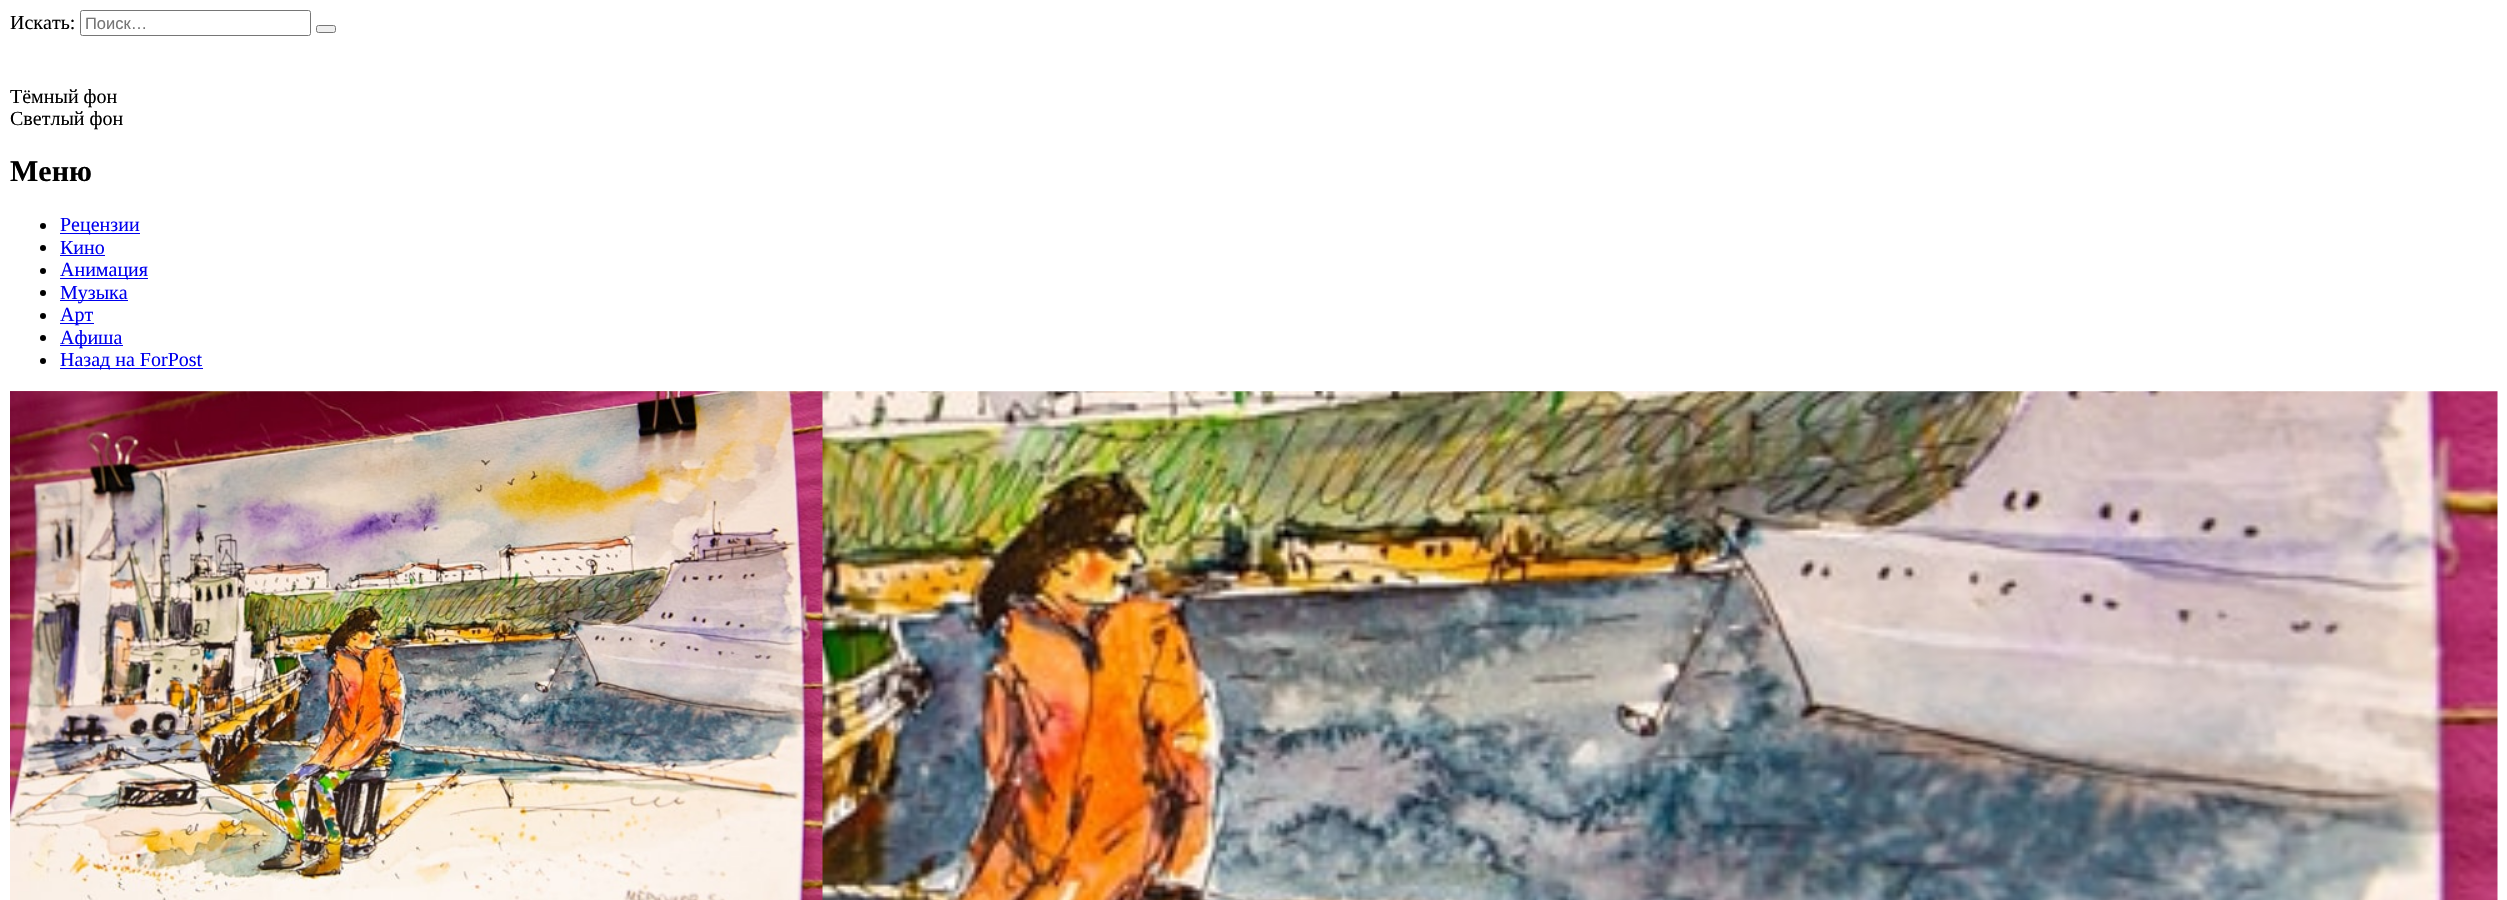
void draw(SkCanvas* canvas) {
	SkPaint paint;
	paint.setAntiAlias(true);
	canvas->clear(0xffffffff);
	SkFont f1(fontMgr->matchFamilyStyle("Liberation Serif", SkFontStyle::Normal()), 20);
	f1.setSubpixel(true);
	paint.setColor(0xff000000);
	canvas->drawString("Искать:", 10, 29, f1, paint);
	paint.setStroke(true);
	paint.setStrokeWidth(1);
	paint.setColor(0xff767676);
	canvas->drawRoundRect(SkRect::MakeXYWH(80.5, 10.5, 230, 25), 2, 2, paint);
	SkFont f2(fontMgr->matchFamilyStyle("Liberation Sans", SkFontStyle::Normal()), 16.5);
	f2.setSubpixel(true);
	paint.setStroke(false);
	paint.setColor(0xff757575);
	canvas->drawString("Поиск…", 85, 29, f2, paint);
	paint.setColor(0xffefefef);
	canvas->drawRoundRect(SkRect::MakeXYWH(316.5, 25.5, 19, 7), 2, 2, paint);
	paint.setStroke(true);
	paint.setColor(0xff767676);
	canvas->drawRoundRect(SkRect::MakeXYWH(316.5, 25.5, 19, 7), 2, 2, paint);
	paint.setStroke(false);
	paint.setColor(0xff000000);
	canvas->drawString("Тёмный фон", 10, 103, f1, paint);
	canvas->drawString("Светлый фон", 10, 125, f1, paint);
	SkFont f3(fontMgr->matchFamilyStyle("Liberation Serif", SkFontStyle::Bold()), 30);
	f3.setSubpixel(true);
	canvas->drawString("Меню", 10, 181, f3, paint);
	canvas->drawCircle(43, 226, 3, paint);
	paint.setColor(0xff0000ee);
	canvas->drawRect(SkRect::MakeXYWH(60, 233, 80, 1), paint);
	canvas->drawString("Рецензии", 60, 231, f1, paint);
	paint.setColor(0xff000000);
	canvas->drawCircle(43, 248, 3, paint);
	paint.setColor(0xff0000ee);
	canvas->drawString("Кино", 60, 254, f1, paint);
	canvas->drawRect(SkRect::MakeXYWH(60, 255, 45, 1), paint);
	paint.setColor(0xff000000);
	canvas->drawCircle(43, 271, 3, paint);
	paint.setColor(0xff0000ee);
	canvas->drawRect(SkRect::MakeXYWH(60, 278, 88, 1), paint);
	canvas->drawString("Анимация", 60, 276, f1, paint);
	paint.setColor(0xff000000);
	canvas->drawCircle(43, 293, 3, paint);
	paint.setColor(0xff0000ee);
	canvas->drawRect(SkRect::MakeXYWH(60, 300, 68, 1), paint);
	canvas->drawString("Музыка", 60, 299, f1, paint);
	paint.setColor(0xff000000);
	canvas->drawCircle(43, 316, 3, paint);
	paint.setColor(0xff0000ee);
	canvas->drawRect(SkRect::MakeXYWH(60, 323, 34, 1), paint);
	canvas->drawString("Арт", 60, 321, f1, paint);
	paint.setColor(0xff000000);
	canvas->drawCircle(43, 338, 3, paint);
	paint.setColor(0xff0000ee);
	canvas->drawRect(SkRect::MakeXYWH(60, 345, 63, 1), paint);
	canvas->drawString("Афиша", 60, 344, f1, paint);
	paint.setColor(0xff000000);
	canvas->drawCircle(43, 361, 3, paint);
	paint.setColor(0xff0000ee);
	canvas->drawRect(SkRect::MakeXYWH(60, 368, 143, 1), paint);
	canvas->drawString("Назад на ForPost", 60, 366, f1, paint);
	canvas->drawImageRect(SkImages::DeferredFromEncodedData(SkData::MakeFromFileName("img1.png")), SkRect::MakeXYWH(10, 391, 2488, 509), SkSamplingOptions());
	canvas->drawImageRect(SkImages::DeferredFromEncodedData(SkData::MakeFromFileName("img2.png")), SkRect::MakeXYWH(10, 391, 813, 509), SkSamplingOptions());
}
